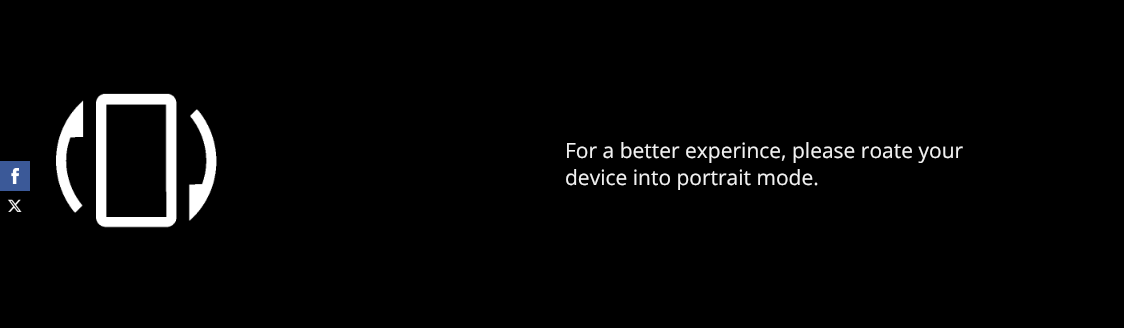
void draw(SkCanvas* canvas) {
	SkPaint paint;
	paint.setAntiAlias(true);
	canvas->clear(0xff000000);
	paint.setColor(0xff3b5998);
	canvas->drawRect(SkRect::MakeXYWH(0, 161, 30, 30), paint);
	canvas->drawImageRect(SkImages::DeferredFromEncodedData(SkData::MakeFromFileName("img1.png")), SkRect::MakeXYWH(11, 168, 8, 16), SkSamplingOptions());
	canvas->drawImageRect(SkImages::DeferredFromEncodedData(SkData::MakeFromFileName("img2.png")), SkRect::MakeXYWH(7, 199, 15, 13), SkSamplingOptions());
	canvas->drawImageRect(SkImages::DeferredFromEncodedData(SkData::MakeFromFileName("img3.png")), SkRect::MakeXYWH(56, 93, 161, 135), SkSamplingOptions());
	SkFont f1(fontMgr->matchFamilyStyle("Open Sans", SkFontStyle::Normal()), 21);
	f1.setSubpixel(true);
	paint.setColor(0xfff2f2f2);
	canvas->drawString("For a better experince, please roate your", 565, 158, f1, paint);
	canvas->drawString("device into portrait mode.", 565, 185, f1, paint);
}
